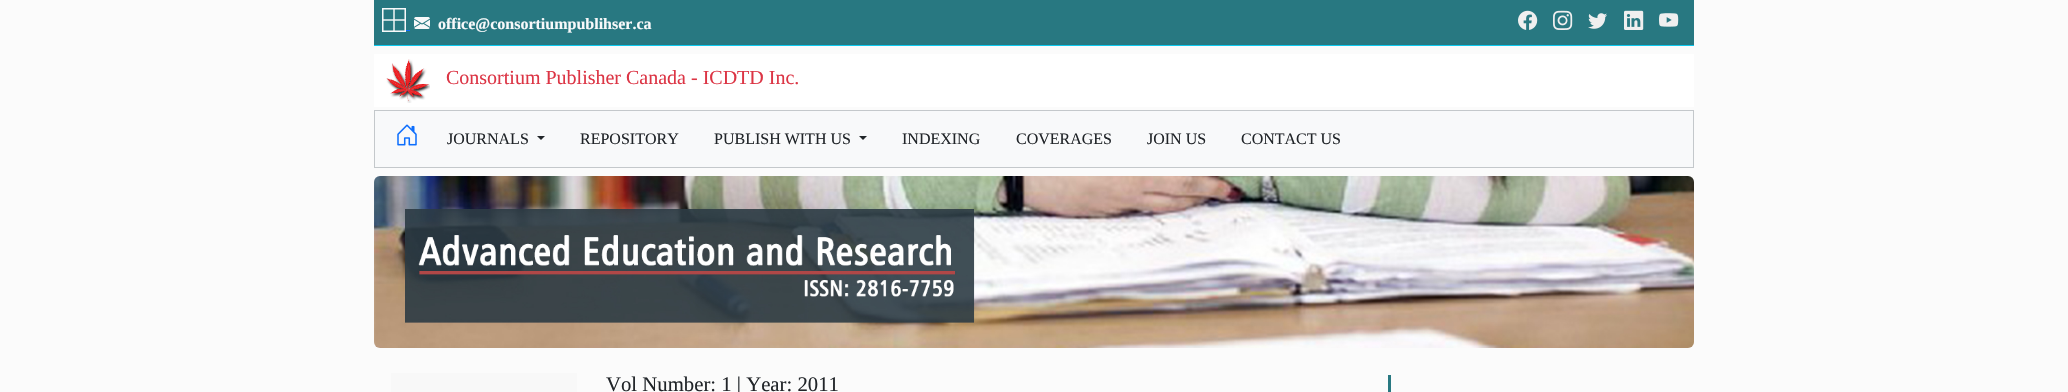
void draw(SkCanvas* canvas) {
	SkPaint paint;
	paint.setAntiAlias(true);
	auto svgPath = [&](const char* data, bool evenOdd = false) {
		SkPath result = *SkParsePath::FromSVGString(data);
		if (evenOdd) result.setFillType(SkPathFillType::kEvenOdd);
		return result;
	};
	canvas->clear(0xfffbfbfb);
	paint.setColor(0xff287881);
	canvas->drawRect(SkRect::MakeXYWH(374, 0, 1320, 45), paint);
	paint.setColor(0xff0dcaf0);
	canvas->drawRect(SkRect::MakeXYWH(374, 45, 1320, 1), paint);
	canvas->drawImageRect(SkImages::DeferredFromEncodedData(SkData::MakeFromFileName("img1.png")), SkRect::MakeXYWH(382, 8, 24, 24), SkSamplingOptions());
	paint.setColor(0xff0d6efd);
	canvas->drawRect(SkRect::MakeXYWH(406, 30, 4, 1), paint);
	canvas->drawImageRect(SkImages::DeferredFromEncodedData(SkData::MakeFromFileName("img2.png")), SkRect::MakeXYWH(414, 17, 16, 12), SkSamplingOptions());
	SkFont f1(fontMgr->matchFamilyStyle("Liberation Serif", SkFontStyle::Bold()), 16);
	f1.setSubpixel(true);
	paint.setColor(0xfff8f9fa);
	canvas->drawString("office@consortiumpublihser.ca", 438, 29, f1, paint);
	canvas->drawImageRect(SkImages::DeferredFromEncodedData(SkData::MakeFromFileName("img3.png")), SkRect::MakeXYWH(1518, 10, 20, 20), SkSamplingOptions());
	canvas->drawImageRect(SkImages::DeferredFromEncodedData(SkData::MakeFromFileName("img4.png")), SkRect::MakeXYWH(1553, 10, 20, 20), SkSamplingOptions());
	canvas->drawImageRect(SkImages::DeferredFromEncodedData(SkData::MakeFromFileName("img5.png")), SkRect::MakeXYWH(1588, 13, 19, 16), SkSamplingOptions());
	canvas->drawImageRect(SkImages::DeferredFromEncodedData(SkData::MakeFromFileName("img6.png")), SkRect::MakeXYWH(1624, 10, 20, 20), SkSamplingOptions());
	canvas->drawImageRect(SkImages::DeferredFromEncodedData(SkData::MakeFromFileName("img7.png")), SkRect::MakeXYWH(1659, 13, 20, 14), SkSamplingOptions());
	paint.setColor(0xffffffff);
	canvas->drawRect(SkRect::MakeXYWH(374, 54, 1320, 53), paint);
	canvas->drawImageRect(SkImages::DeferredFromEncodedData(SkData::MakeFromFileName("img8.png")), SkRect::MakeXYWH(386, 59, 44, 44), SkSamplingOptions());
	SkFont f2(fontMgr->matchFamilyStyle("Liberation Serif", SkFontStyle::Normal()), 20);
	f2.setSubpixel(true);
	paint.setColor(0xffdc3545);
	canvas->drawString("Consortium Publisher Canada - ICDTD Inc.", 446, 84, f2, paint);
	paint.setColor(0xfff8f9fa);
	canvas->drawRect(SkRect::MakeXYWH(374.5, 110.5, 1319, 57), paint);
	paint.setStroke(true);
	paint.setStrokeWidth(1);
	paint.setColor(0xffc4c8cb);
	canvas->drawRect(SkRect::MakeXYWH(374.5, 110.5, 1319, 57), paint);
	canvas->drawImageRect(SkImages::DeferredFromEncodedData(SkData::MakeFromFileName("img9.png")), SkRect::MakeXYWH(397, 124, 20, 22), SkSamplingOptions());
	SkFont f3(fontMgr->matchFamilyStyle("Liberation Serif", SkFontStyle::Normal()), 16);
	f3.setSubpixel(true);
	paint.setStroke(false);
	paint.setColor(0xff212529);
	canvas->drawString("JOURNALS", 447, 144, f3, paint);
	canvas->drawPath(svgPath("M537 136H545L541 140Z"), paint);
	canvas->drawString("REPOSITORY", 580, 144, f3, paint);
	canvas->drawString("PUBLISH WITH US", 714, 144, f3, paint);
	canvas->drawPath(svgPath("M859 136H867L863 140Z"), paint);
	canvas->drawString("INDEXING", 902, 144, f3, paint);
	canvas->drawString("COVERAGES", 1016, 144, f3, paint);
	canvas->drawString("JOIN US", 1147, 144, f3, paint);
	canvas->drawString("CONTACT US", 1241, 144, f3, paint);
	canvas->drawImageRect(SkImages::DeferredFromEncodedData(SkData::MakeFromFileName("img10.png")), SkRect::MakeXYWH(374, 176, 1320, 172), SkSamplingOptions());
	paint.setColor(0xfff8f8f8);
	canvas->drawRect(SkRect::MakeXYWH(391, 373, 186, 19), paint);
	SkFont f4(fontMgr->matchFamilyStyle("Liberation Serif", SkFontStyle::Normal()), 20.75);
	f4.setSubpixel(true);
	paint.setColor(0xff212529);
	canvas->drawString("Vol Number: 1 | Year: 2011", 606, 391, f4, paint);
	paint.setColor(0xff287881);
	canvas->drawRect(SkRect::MakeXYWH(1388, 375, 3, 17), paint);
}
